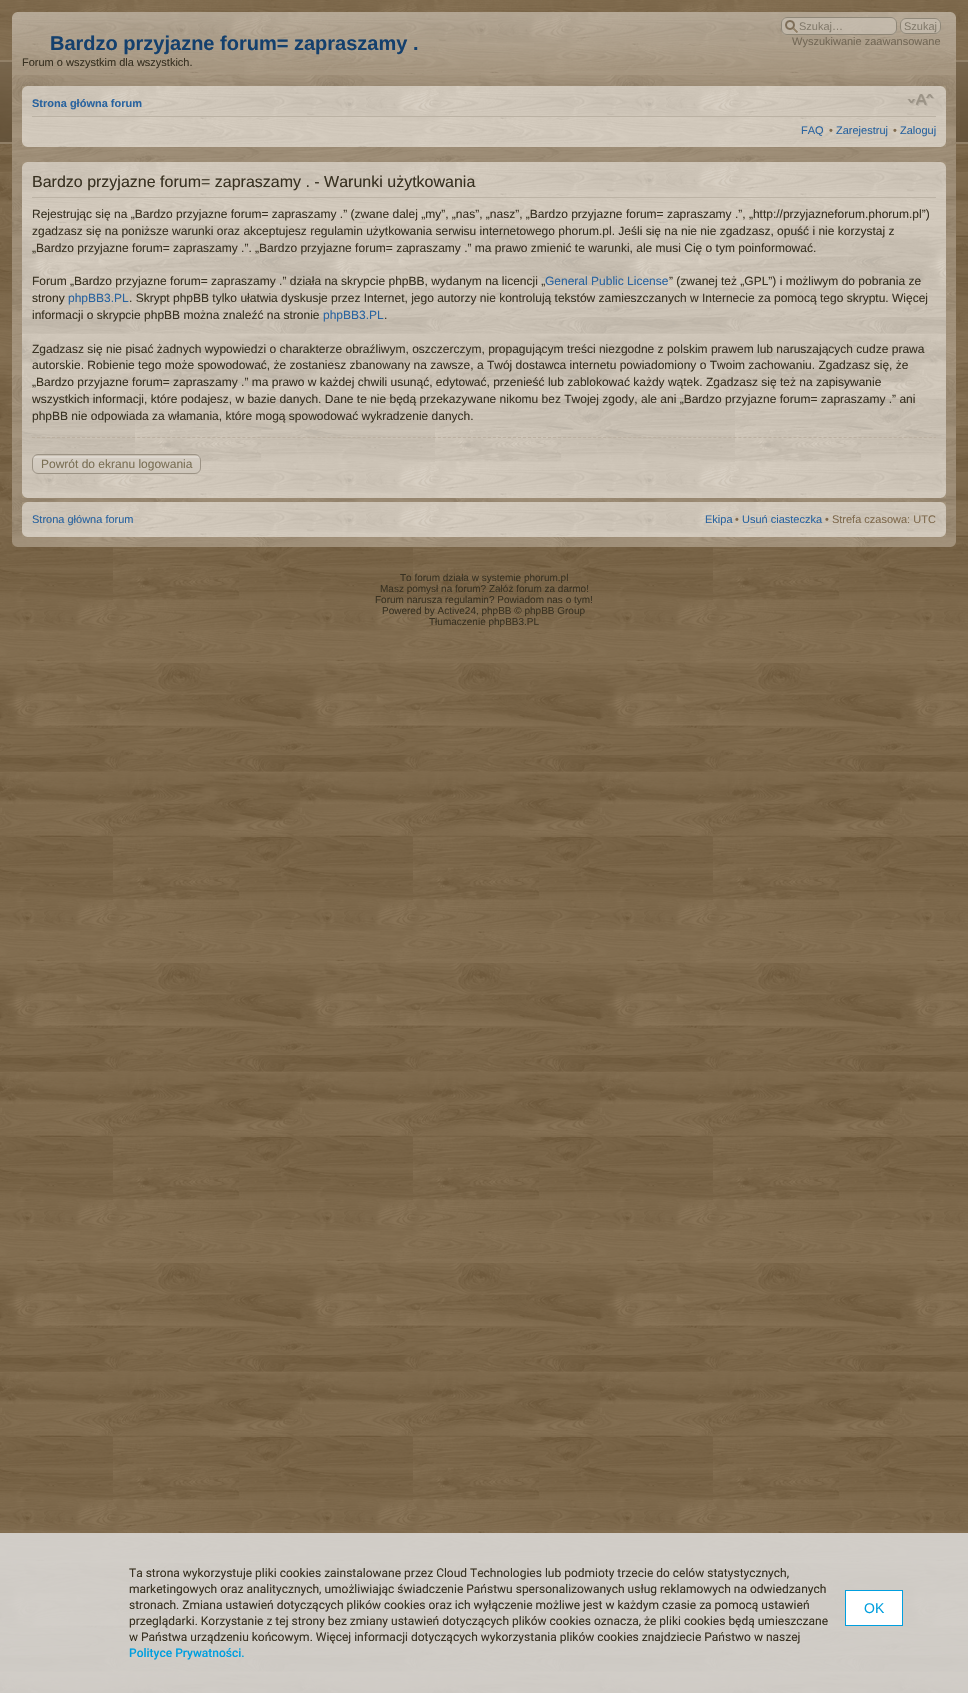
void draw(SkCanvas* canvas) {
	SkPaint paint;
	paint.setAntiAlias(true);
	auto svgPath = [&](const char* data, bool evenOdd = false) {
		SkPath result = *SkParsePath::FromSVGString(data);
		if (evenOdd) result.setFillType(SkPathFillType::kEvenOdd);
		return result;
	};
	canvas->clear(0xffffffff);
	canvas->drawImageRect(SkImages::DeferredFromEncodedData(SkData::MakeFromFileName("img1.png")), SkRect::MakeXYWH(0, 651, 968, 1042), SkSamplingOptions());
	canvas->drawImageRect(SkImages::DeferredFromEncodedData(SkData::MakeFromFileName("img2.png")), SkRect::MakeXYWH(0, 0, 968, 651), SkSamplingOptions());
	canvas->drawImageRect(SkImages::DeferredFromEncodedData(SkData::MakeFromFileName("img3.png")), SkRect::MakeXYWH(0, 60, 968, 84), SkSamplingOptions());
	canvas->drawImageRect(SkImages::DeferredFromEncodedData(SkData::MakeFromFileName("img4.png")), SkRect::MakeXYWH(12, 12, 944, 535), SkSamplingOptions());
	canvas->drawImageRect(SkImages::DeferredFromEncodedData(SkData::MakeFromFileName("img5.png")), SkRect::MakeXYWH(12, 12, 5, 5), SkSamplingOptions());
	canvas->drawImageRect(SkImages::DeferredFromEncodedData(SkData::MakeFromFileName("img6.png")), SkRect::MakeXYWH(951, 12, 5, 5), SkSamplingOptions());
	SkFont f1(fontMgr->matchFamilyStyle("Liberation Sans", SkFontStyle::Bold()), 20);
	f1.setSubpixel(true);
	paint.setColor(0xff14406d);
	canvas->drawString("Bardzo przyjazne forum= zapraszamy .", 50, 50, f1, paint);
	SkFont f2(fontMgr->matchFamilyStyle("Liberation Sans", SkFontStyle::Normal()), 11);
	f2.setSubpixel(true);
	paint.setColor(0xff383121);
	canvas->drawString("Forum o wszystkim dla wszystkich.", 22, 66, f2, paint);
	paint.setColor(0xb3c9c0b3);
	canvas->drawRoundRect(SkRect::MakeXYWH(781, 17, 116, 18), 6, 6, paint);
	canvas->drawImageRect(SkImages::DeferredFromEncodedData(SkData::MakeFromFileName("img7.png")), SkRect::MakeXYWH(785, 20, 14, 14), SkSamplingOptions());
	paint.setStroke(true);
	paint.setStrokeWidth(1);
	paint.setColor(0xb3797262);
	canvas->drawRoundRect(SkRect::MakeXYWH(781.5, 17.5, 115, 17), 5.5, 5.5, paint);
	paint.setStroke(false);
	paint.setColor(0xff847c6d);
	canvas->drawString("Szukaj…", 799, 30, f2, paint);
	paint.setColor(0xb3c9c0b3);
	canvas->drawRoundRect(SkRect::MakeXYWH(900, 18, 41, 16), 6, 6, paint);
	paint.setStroke(true);
	paint.setColor(0xb3797262);
	canvas->drawRoundRect(SkRect::MakeXYWH(900.5, 18.5, 40, 15), 5.5, 5.5, paint);
	paint.setStroke(false);
	paint.setColor(0xff847c6d);
	canvas->drawString("Szukaj", 904, 30, f2, paint);
	paint.setColor(0xff736856);
	canvas->drawString("Wyszukiwanie zaawansowane", 792, 45, f2, paint);
	canvas->drawImageRect(SkImages::DeferredFromEncodedData(SkData::MakeFromFileName("img8.png")), SkRect::MakeXYWH(22, 86, 924, 61), SkSamplingOptions());
	canvas->drawImageRect(SkImages::DeferredFromEncodedData(SkData::MakeFromFileName("img9.png")), SkRect::MakeXYWH(22, 86, 5, 5), SkSamplingOptions());
	canvas->drawImageRect(SkImages::DeferredFromEncodedData(SkData::MakeFromFileName("img10.png")), SkRect::MakeXYWH(941, 86, 5, 5), SkSamplingOptions());
	paint.setColor(0xffbbb2a4);
	canvas->drawRect(SkRect::MakeXYWH(32, 116, 904, 1), paint);
	SkFont f3(fontMgr->matchFamilyStyle("Liberation Sans", SkFontStyle::Bold()), 11);
	f3.setSubpixel(true);
	paint.setColor(0xff29639f);
	canvas->drawString("Strona główna forum", 32, 107, f3, paint);
	canvas->drawImageRect(SkImages::DeferredFromEncodedData(SkData::MakeFromFileName("img11.png")), SkRect::MakeXYWH(907, 94, 28, 12), SkSamplingOptions());
	canvas->drawString("FAQ", 801, 134, f2, paint);
	paint.setColor(0xff7f6a4d);
	canvas->drawString("•", 829, 134, f2, paint);
	paint.setColor(0xff29639f);
	canvas->drawString("Zarejestruj", 836, 134, f2, paint);
	paint.setColor(0xff7f6a4d);
	canvas->drawString("•", 893, 134, f2, paint);
	paint.setColor(0xff29639f);
	canvas->drawString("Zaloguj", 900, 134, f2, paint);
	canvas->drawImageRect(SkImages::DeferredFromEncodedData(SkData::MakeFromFileName("img12.png")), SkRect::MakeXYWH(22, 142, 5, 5), SkSamplingOptions());
	canvas->drawImageRect(SkImages::DeferredFromEncodedData(SkData::MakeFromFileName("img13.png")), SkRect::MakeXYWH(941, 142, 5, 5), SkSamplingOptions());
	canvas->drawImageRect(SkImages::DeferredFromEncodedData(SkData::MakeFromFileName("img14.png")), SkRect::MakeXYWH(22, 162, 924, 336), SkSamplingOptions());
	canvas->drawImageRect(SkImages::DeferredFromEncodedData(SkData::MakeFromFileName("img9.png")), SkRect::MakeXYWH(22, 162, 5, 5), SkSamplingOptions());
	canvas->drawImageRect(SkImages::DeferredFromEncodedData(SkData::MakeFromFileName("img10.png")), SkRect::MakeXYWH(941, 162, 5, 5), SkSamplingOptions());
	paint.setColor(0xffbcb3a5);
	canvas->drawRect(SkRect::MakeXYWH(32, 197, 904, 1), paint);
	SkFont f4(fontMgr->matchFamilyStyle("Liberation Sans", SkFontStyle::Normal()), 16);
	f4.setSubpixel(true);
	paint.setColor(0xff383121);
	canvas->drawString("Bardzo przyjazne forum= zapraszamy . - Warunki użytkowania", 32, 187, f4, paint);
	SkFont f5(fontMgr->matchFamilyStyle("Liberation Sans", SkFontStyle::Normal()), 12);
	f5.setSubpixel(true);
	canvas->drawString("Rejestrując się na „Bardzo przyjazne forum= zapraszamy .” (zwane dalej „my”, „nas”, „nasz”, „Bardzo przyjazne forum= zapraszamy .”, „http://przyjazneforum.phorum.pl”)", 32, 218, f5, paint);
	canvas->drawString("zgadzasz się na poniższe warunki oraz akceptujesz regulamin użytkowania serwisu internetowego phorum.pl. Jeśli się na nie nie zgadzasz, opuść i nie korzystaj z", 32, 235, f5, paint);
	canvas->drawString("„Bardzo przyjazne forum= zapraszamy .”. „Bardzo przyjazne forum= zapraszamy .” ma prawo zmienić te warunki, ale musi Cię o tym poinformować.", 32, 252, f5, paint);
	canvas->drawString("Forum „Bardzo przyjazne forum= zapraszamy .” działa na skrypcie phpBB, wydanym na licencji „", 32, 285, f5, paint);
	paint.setColor(0xff29639f);
	canvas->drawString("General Public License", 545, 285, f5, paint);
	paint.setColor(0xff383121);
	canvas->drawString("” (zwanej też „GPL”) i możliwym do pobrania ze", 669, 285, f5, paint);
	canvas->drawString("strony", 32, 302, f5, paint);
	paint.setColor(0xff29639f);
	canvas->drawString("phpBB3.PL", 68, 302, f5, paint);
	paint.setColor(0xff383121);
	canvas->drawString(". Skrypt phpBB tylko ułatwia dyskusje przez Internet, jego autorzy nie kontrolują tekstów zamieszczanych w Internecie za pomocą tego skryptu. Więcej", 129, 302, f5, paint);
	canvas->drawString("informacji o skrypcie phpBB można znaleźć na stronie", 32, 319, f5, paint);
	paint.setColor(0xff29639f);
	canvas->drawString("phpBB3.PL", 323, 319, f5, paint);
	paint.setColor(0xff383121);
	canvas->drawString(".", 384, 319, f5, paint);
	canvas->drawString("Zgadzasz się nie pisać żadnych wypowiedzi o charakterze obraźliwym, oszczerczym, propagującym treści niezgodne z polskim prawem lub naruszających cudze prawa", 32, 353, f5, paint);
	canvas->drawString("autorskie. Robienie tego może spowodować, że zostaniesz zbanowany na zawsze, a Twój dostawca internetu powiadomiony o Twoim zachowaniu. Zgadzasz się, że", 32, 369, f5, paint);
	canvas->drawString("„Bardzo przyjazne forum= zapraszamy .” ma prawo w każdej chwili usunąć, edytować, przenieść lub zablokować każdy wątek. Zgadzasz się też na zapisywanie", 32, 386, f5, paint);
	canvas->drawString("wszystkich informacji, które podajesz, w bazie danych. Dane te nie będą przekazywane nikomu bez Twojej zgody, ale ani „Bardzo przyjazne forum= zapraszamy .” ani", 32, 403, f5, paint);
	canvas->drawString("phpBB nie odpowiada za włamania, które mogą spowodować wykradzenie danych.", 32, 420, f5, paint);
	paint.setStroke(true);
	paint.setColor(0xffbbaf9f);
	paint.setPathEffect(SkDashPathEffect::Make({{3, 2.01f}}, 0));
	canvas->drawPath(svgPath("M32 437.5H936"), paint);
	paint.setPathEffect(nullptr);
	paint.setStroke(false);
	paint.setColor(0xffc9c0b3);
	canvas->drawRoundRect(SkRect::MakeXYWH(32, 454, 169, 20), 6, 6, paint);
	canvas->drawImageRect(SkImages::DeferredFromEncodedData(SkData::MakeFromFileName("img15.png")), SkRect::MakeXYWH(32, 456, 169, 18), SkSamplingOptions());
	paint.setStroke(true);
	paint.setColor(0xff9c9385);
	canvas->drawRoundRect(SkRect::MakeXYWH(32.5, 454.5, 168, 19), 5.5, 5.5, paint);
	paint.setStroke(false);
	paint.setColor(0xff7b7055);
	canvas->drawString("Powrót do ekranu logowania", 41, 468, f5, paint);
	canvas->drawImageRect(SkImages::DeferredFromEncodedData(SkData::MakeFromFileName("img16.png")), SkRect::MakeXYWH(22, 493, 5, 5), SkSamplingOptions());
	canvas->drawImageRect(SkImages::DeferredFromEncodedData(SkData::MakeFromFileName("img17.png")), SkRect::MakeXYWH(941, 493, 5, 5), SkSamplingOptions());
	canvas->drawImageRect(SkImages::DeferredFromEncodedData(SkData::MakeFromFileName("img18.png")), SkRect::MakeXYWH(22, 502, 924, 35), SkSamplingOptions());
	canvas->drawImageRect(SkImages::DeferredFromEncodedData(SkData::MakeFromFileName("img9.png")), SkRect::MakeXYWH(22, 502, 5, 5), SkSamplingOptions());
	canvas->drawImageRect(SkImages::DeferredFromEncodedData(SkData::MakeFromFileName("img10.png")), SkRect::MakeXYWH(941, 502, 5, 5), SkSamplingOptions());
	paint.setColor(0xff29639f);
	canvas->drawString("Strona główna forum", 32, 523, f2, paint);
	canvas->drawString("Ekipa", 705, 523, f2, paint);
	paint.setColor(0xff7f6a4d);
	canvas->drawString("•", 735, 523, f2, paint);
	paint.setColor(0xff29639f);
	canvas->drawString("Usuń ciasteczka", 742, 523, f2, paint);
	paint.setColor(0xff7f6a4d);
	canvas->drawString("• Strefa czasowa: UTC", 825, 523, f2, paint);
	canvas->drawImageRect(SkImages::DeferredFromEncodedData(SkData::MakeFromFileName("img19.png")), SkRect::MakeXYWH(22, 532, 5, 5), SkSamplingOptions());
	canvas->drawImageRect(SkImages::DeferredFromEncodedData(SkData::MakeFromFileName("img20.png")), SkRect::MakeXYWH(941, 532, 5, 5), SkSamplingOptions());
	canvas->drawImageRect(SkImages::DeferredFromEncodedData(SkData::MakeFromFileName("img21.png")), SkRect::MakeXYWH(12, 542, 5, 5), SkSamplingOptions());
	canvas->drawImageRect(SkImages::DeferredFromEncodedData(SkData::MakeFromFileName("img22.png")), SkRect::MakeXYWH(951, 542, 5, 5), SkSamplingOptions());
	SkFont f6(fontMgr->matchFamilyStyle("Liberation Sans", SkFontStyle::Normal()), 10);
	f6.setSubpixel(true);
	paint.setColor(0xff383121);
	canvas->drawString("To forum działa w systemie phorum.pl", 400, 581, f6, paint);
	canvas->drawString("Masz pomysł na forum? Załóż forum za darmo!", 380, 592, f6, paint);
	canvas->drawString("Forum narusza regulamin? Powiadom nas o tym!", 375, 603, f6, paint);
	canvas->drawString("Powered by Active24, phpBB © phpBB Group", 382, 614, f6, paint);
	canvas->drawString("Tłumaczenie phpBB3.PL", 429, 625, f6, paint);
	paint.setColor(0xcce5e5e5);
	canvas->drawRect(SkRect::MakeXYWH(0, 1533, 968, 160), paint);
	SkFont f7(fontMgr->matchFamilyStyle("Roboto", SkFontStyle::Normal()), 12);
	f7.setSubpixel(true);
	paint.setColor(0xff383121);
	canvas->drawString("Ta strona wykorzystuje pliki cookies zainstalowane przez Cloud Technologies lub podmioty trzecie do celów statystycznych,", 129, 1577, f7, paint);
	canvas->drawString("marketingowych oraz analitycznych, umożliwiając świadczenie Państwu spersonalizowanych usług reklamowych na odwiedzanych", 129, 1593, f7, paint);
	canvas->drawString("stronach. Zmiana ustawień dotyczących plików cookies oraz ich wyłączenie możliwe jest w każdym czasie za pomocą ustawień", 129, 1609, f7, paint);
	canvas->drawString("przeglądarki. Korzystanie z tej strony bez zmiany ustawień dotyczących plików cookies oznacza, że pliki cookies będą umieszczane", 129, 1625, f7, paint);
	canvas->drawString("w Państwa urządzeniu końcowym. Więcej informacji dotyczących wykorzystania plików cookies znajdziecie Państwo w naszej", 129, 1641, f7, paint);
	SkFont f8(fontMgr->matchFamilyStyle("Roboto", SkFontStyle(500, SkFontStyle::kNormal_Width, SkFontStyle::kUpright_Slant)), 12);
	f8.setSubpixel(true);
	paint.setColor(0xff009fdf);
	canvas->drawString("Polityce Prywatności.", 129, 1657, f8, paint);
	paint.setColor(0xffffffff);
	canvas->drawRect(SkRect::MakeXYWH(845.5, 1590.5, 57, 35), paint);
	paint.setStroke(true);
	paint.setColor(0xff009fdf);
	canvas->drawRect(SkRect::MakeXYWH(845.5, 1590.5, 57, 35), paint);
	SkFont f9(fontMgr->matchFamilyStyle("Liberation Sans", SkFontStyle::Normal()), 14);
	f9.setSubpixel(true);
	paint.setStroke(false);
	canvas->drawString("OK", 864, 1613, f9, paint);
}
